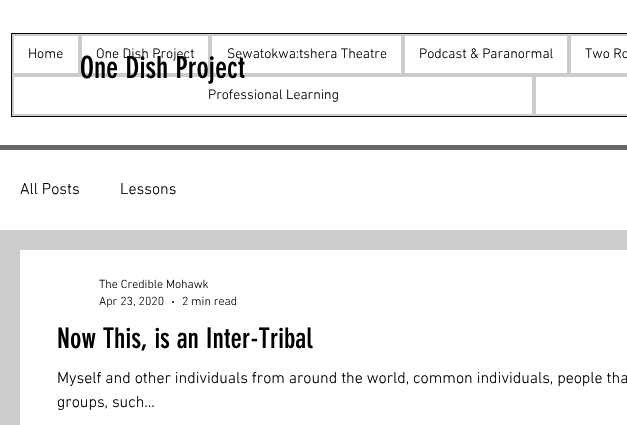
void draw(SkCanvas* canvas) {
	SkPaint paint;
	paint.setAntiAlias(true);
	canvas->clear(0xffcccccc);
	paint.setColor(0xffffffff);
	canvas->drawRect(SkRect::MakeXYWH(0, 0, 627, 145), paint);
	paint.setColor(0xff666666);
	canvas->drawRect(SkRect::MakeXYWH(0, 145, 627, 5), paint);
	paint.setStroke(true);
	paint.setStrokeWidth(1);
	paint.setColor(0xff000000);
	canvas->drawRect(SkRect::MakeXYWH(11.5, 33.5, 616, 83), paint);
	paint.setStrokeWidth(2);
	paint.setColor(0xffcccccc);
	canvas->drawRect(SkRect::MakeXYWH(13, 35, 66, 39), paint);
	SkFont f1(fontMgr->matchFamilyStyle("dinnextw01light", SkFontStyle(300, SkFontStyle::kNormal_Width, SkFontStyle::kUpright_Slant)), 14);
	f1.setSubpixel(true);
	paint.setStroke(false);
	paint.setColor(0xff000000);
	canvas->drawString("Home", 28, 58, f1, paint);
	paint.setStroke(true);
	paint.setColor(0xffcccccc);
	canvas->drawRect(SkRect::MakeXYWH(81, 35, 128, 39), paint);
	paint.setStroke(false);
	paint.setColor(0xff000000);
	canvas->drawString("One Dish Project", 96, 58, f1, paint);
	paint.setStroke(true);
	paint.setColor(0xffcccccc);
	canvas->drawRect(SkRect::MakeXYWH(211, 35, 191, 39), paint);
	paint.setStroke(false);
	paint.setColor(0xff000000);
	canvas->drawString("Sewatokwa:tshera Theatre", 227, 58, f1, paint);
	paint.setStroke(true);
	paint.setColor(0xffcccccc);
	canvas->drawRect(SkRect::MakeXYWH(404, 35, 164, 39), paint);
	paint.setStroke(false);
	paint.setColor(0xff000000);
	canvas->drawString("Podcast & Paranormal", 419, 58, f1, paint);
	paint.setStroke(true);
	paint.setColor(0xffcccccc);
	canvas->drawRect(SkRect::MakeXYWH(570, 35, 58, 39), paint);
	paint.setStroke(false);
	paint.setColor(0xff000000);
	canvas->drawString("Two Ro", 585, 58, f1, paint);
	paint.setStroke(true);
	paint.setColor(0xffcccccc);
	canvas->drawRect(SkRect::MakeXYWH(13, 76, 520, 39), paint);
	paint.setStroke(false);
	paint.setColor(0xff000000);
	canvas->drawString("Professional Learning", 208, 99, f1, paint);
	paint.setStroke(true);
	paint.setColor(0xffcccccc);
	canvas->drawRect(SkRect::MakeXYWH(535, 76, 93, 39), paint);
	SkFont f2(fontMgr->matchFamilyStyle("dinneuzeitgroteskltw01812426", SkFontStyle::Normal()), 30);
	f2.setSubpixel(true);
	paint.setStroke(false);
	paint.setColor(0xff000000);
	canvas->drawString("One Dish Project", 80, 78, f2, paint);
	paint.setColor(0xffffffff);
	canvas->drawRect(SkRect::MakeXYWH(0, 150, 627, 80), paint);
	SkFont f3(fontMgr->matchFamilyStyle("dinnextw01light", SkFontStyle(300, SkFontStyle::kNormal_Width, SkFontStyle::kUpright_Slant)), 16);
	f3.setSubpixel(true);
	paint.setColor(0xff000000);
	canvas->drawString("All Posts", 20, 194, f3, paint);
	canvas->drawString("Lessons", 120, 194, f3, paint);
	paint.setStroke(true);
	paint.setStrokeWidth(1);
	paint.setColor(0xffffffff);
	canvas->drawRect(SkRect::MakeXYWH(20.5, 250.5, 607, 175), paint);
	paint.setStroke(false);
	canvas->drawRect(SkRect::MakeXYWH(21, 251, 606, 174), paint);
	SkFont f4(fontMgr->matchFamilyStyle("dinnextw01light", SkFontStyle(300, SkFontStyle::kNormal_Width, SkFontStyle::kUpright_Slant)), 12);
	f4.setSubpixel(true);
	paint.setColor(0xff000000);
	canvas->drawString("The Credible Mohawk", 99, 288, f4, paint);
	canvas->drawString("Apr 23, 2020", 99, 305, f4, paint);
	canvas->drawCircle(173, 302, 1, paint);
	canvas->drawString("2 min read", 182, 305, f4, paint);
	SkFont f5(fontMgr->matchFamilyStyle("dinneuzeitgroteskltw01812426", SkFontStyle::Normal()), 28);
	f5.setSubpixel(true);
	canvas->drawString("Now This, is an Inter-Tribal", 57, 348, f5, paint);
	canvas->drawString("Myself and other individuals from around the world, common individuals, people tha", 57, 383, f3, paint);
	canvas->drawString("groups, such...", 57, 407, f3, paint);
}
